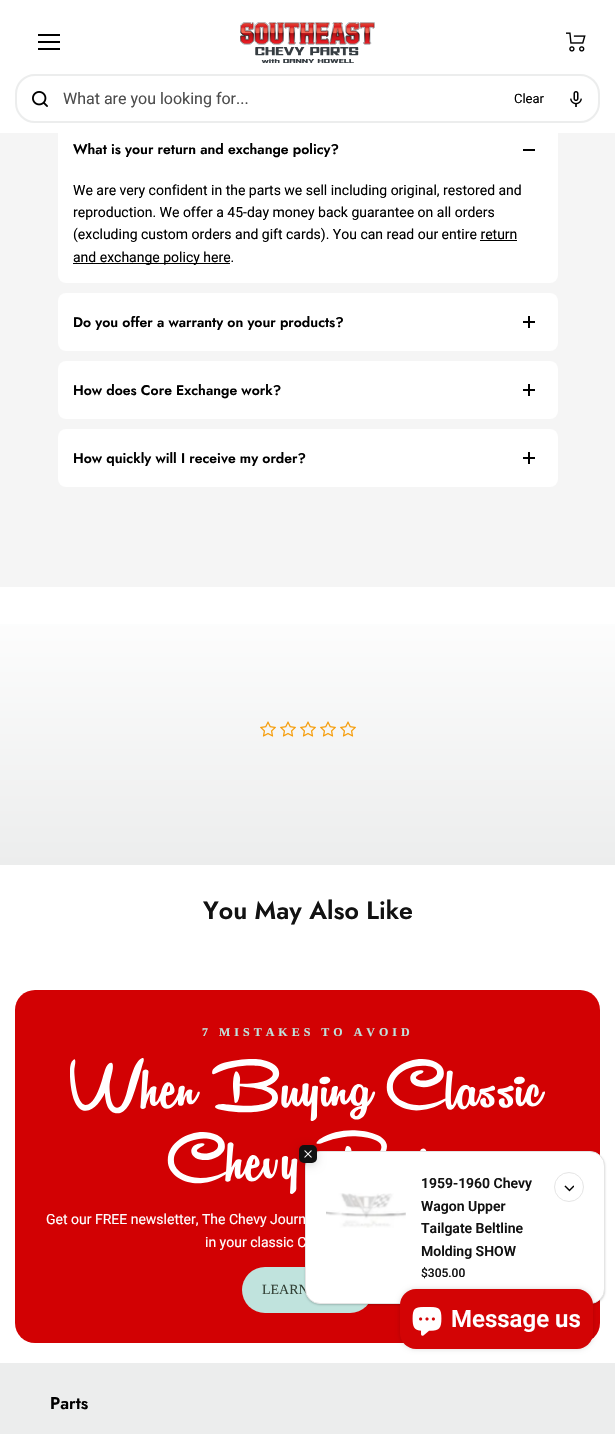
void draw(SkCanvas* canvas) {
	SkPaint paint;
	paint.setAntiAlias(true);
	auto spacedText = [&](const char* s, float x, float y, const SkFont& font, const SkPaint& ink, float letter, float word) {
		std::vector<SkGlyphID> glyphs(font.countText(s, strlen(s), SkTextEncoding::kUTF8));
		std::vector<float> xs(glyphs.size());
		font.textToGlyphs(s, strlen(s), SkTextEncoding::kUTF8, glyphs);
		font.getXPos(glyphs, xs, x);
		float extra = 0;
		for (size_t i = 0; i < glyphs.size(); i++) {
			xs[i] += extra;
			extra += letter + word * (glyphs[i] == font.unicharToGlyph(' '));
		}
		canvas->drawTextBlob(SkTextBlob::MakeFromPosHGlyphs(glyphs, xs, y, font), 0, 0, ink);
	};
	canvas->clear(0xffffffff);
	paint.setColor(0xff000000);
	canvas->drawRect(SkRect::MakeXYWH(38, 34, 22, 2), paint);
	canvas->drawRect(SkRect::MakeXYWH(38, 41, 22, 2), paint);
	canvas->drawRect(SkRect::MakeXYWH(38, 48, 22, 2), paint);
	canvas->drawImageRect(SkImages::DeferredFromEncodedData(SkData::MakeFromFileName("img1.png")), SkRect::MakeXYWH(240, 22, 135, 41), SkSamplingOptions());
	canvas->drawImageRect(SkImages::DeferredFromEncodedData(SkData::MakeFromFileName("img2.png")), SkRect::MakeXYWH(566, 32, 20, 20), SkSamplingOptions());
	paint.setColor(0xfff5f5f5);
	canvas->drawRect(SkRect::MakeXYWH(0, 133, 615, 454), paint);
	paint.setColor(0xffffffff);
	canvas->drawRoundRect(SkRect::MakeXYWH(58, 121, 500, 162), 8, 8, paint);
	paint.setStroke(true);
	paint.setStrokeWidth(2);
	paint.setColor(0xffeceded);
	canvas->drawRoundRect(SkRect::MakeXYWH(16, 75, 583, 47), 19, 19, paint);
	canvas->drawImageRect(SkImages::DeferredFromEncodedData(SkData::MakeFromFileName("img3.png")), SkRect::MakeXYWH(32, 91, 16, 16), SkSamplingOptions());
	SkFont f1(fontMgr->matchFamilyStyle("Roboto", SkFontStyle::Normal()), 16);
	f1.setSubpixel(true);
	paint.setStroke(false);
	paint.setColor(0xff4d4d4d);
	canvas->drawString("What are you looking for...", 63, 104, f1, paint);
	SkFont f2(fontMgr->matchFamilyStyle("Roboto", SkFontStyle::Normal()), 13);
	f2.setSubpixel(true);
	paint.setColor(0xff000000);
	canvas->drawString("Clear", 514, 103, f2, paint);
	canvas->drawImageRect(SkImages::DeferredFromEncodedData(SkData::MakeFromFileName("img4.png")), SkRect::MakeXYWH(570, 91, 12, 16), SkSamplingOptions());
	SkFont f3(fontMgr->matchFamilyStyle("Jost", SkFontStyle(600, SkFontStyle::kNormal_Width, SkFontStyle::kUpright_Slant)), 14);
	f3.setSubpixel(true);
	canvas->drawString("What is your return and exchange policy?", 73, 154, f3, paint);
	canvas->drawRect(SkRect::MakeXYWH(523, 149, 12, 2), paint);
	SkFont f4(fontMgr->matchFamilyStyle("Roboto", SkFontStyle::Normal()), 14);
	f4.setSubpixel(true);
	canvas->drawString("We are very confident in the parts we sell including original, restored and", 73, 195, f4, paint);
	canvas->drawString("reproduction. We offer a 45-day money back guarantee on all orders", 73, 217, f4, paint);
	canvas->drawString("(excluding custom orders and gift cards). You can read our entire return", 73, 239, f4, paint);
	canvas->drawRect(SkRect::MakeXYWH(73, 263, 157, 1), paint);
	canvas->drawString("and exchange policy here.", 73, 262, f4, paint);
	canvas->drawRect(SkRect::MakeXYWH(480, 240, 37, 1), paint);
	paint.setColor(0xffffffff);
	canvas->drawRoundRect(SkRect::MakeXYWH(58, 293, 500, 58), 8, 8, paint);
	paint.setColor(0xff000000);
	canvas->drawString("Do you offer a warranty on your products?", 73, 327, f3, paint);
	canvas->drawRect(SkRect::MakeXYWH(523, 321, 12, 2), paint);
	canvas->drawRect(SkRect::MakeXYWH(528, 316, 2, 12), paint);
	paint.setColor(0xffffffff);
	canvas->drawRoundRect(SkRect::MakeXYWH(58, 361, 500, 58), 8, 8, paint);
	paint.setColor(0xff000000);
	canvas->drawString("How does Core Exchange work?", 73, 395, f3, paint);
	canvas->drawRect(SkRect::MakeXYWH(523, 389, 12, 2), paint);
	canvas->drawRect(SkRect::MakeXYWH(528, 384, 2, 12), paint);
	paint.setColor(0xffffffff);
	canvas->drawRoundRect(SkRect::MakeXYWH(58, 429, 500, 58), 8, 8, paint);
	paint.setColor(0xff000000);
	canvas->drawString("How quickly will I receive my order?", 73, 463, f3, paint);
	canvas->drawRect(SkRect::MakeXYWH(523, 457, 12, 2), paint);
	canvas->drawRect(SkRect::MakeXYWH(528, 452, 2, 12), paint);
	{
		const SkColor colors[] = {0xffffffff, 0xffeceded};
		const float stops[] = {0, 1};
		const SkPoint ends[] = {{308, 587}, {308, 865}};
		paint.setShader(SkGradientShader::MakeLinear(ends, colors, stops, 2, SkTileMode::kClamp));
		paint.setAlpha(255);
	}
	canvas->drawRect(SkRect::MakeXYWH(0, 624, 615, 241), paint);
	canvas->drawImageRect(SkImages::DeferredFromEncodedData(SkData::MakeFromFileName("img5.png")), SkRect::MakeXYWH(260, 721, 16, 16), SkSamplingOptions());
	canvas->drawImageRect(SkImages::DeferredFromEncodedData(SkData::MakeFromFileName("img5.png")), SkRect::MakeXYWH(280, 721, 16, 16), SkSamplingOptions());
	canvas->drawImageRect(SkImages::DeferredFromEncodedData(SkData::MakeFromFileName("img5.png")), SkRect::MakeXYWH(300, 721, 16, 16), SkSamplingOptions());
	canvas->drawImageRect(SkImages::DeferredFromEncodedData(SkData::MakeFromFileName("img5.png")), SkRect::MakeXYWH(320, 721, 16, 16), SkSamplingOptions());
	canvas->drawImageRect(SkImages::DeferredFromEncodedData(SkData::MakeFromFileName("img5.png")), SkRect::MakeXYWH(340, 721, 16, 16), SkSamplingOptions());
	SkFont f5(fontMgr->matchFamilyStyle("Jost", SkFontStyle(600, SkFontStyle::kNormal_Width, SkFontStyle::kUpright_Slant)), 25);
	f5.setSubpixel(true);
	paint.setShader(nullptr);
	paint.setColor(0xff121212);
	canvas->drawString("You May Also Like", 203, 919, f5, paint);
	paint.setColor(0xffd20103);
	canvas->drawRoundRect(SkRect::MakeXYWH(15, 990, 585, 353), 20, 20, paint);
	canvas->drawImageRect(SkImages::DeferredFromEncodedData(SkData::MakeFromFileName("img9.png")), SkRect::MakeXYWH(70, 1058, 475, 136), SkSamplingOptions());
	paint.setColor(0xffc0e3dd);
	canvas->drawRoundRect(SkRect::MakeXYWH(242, 1267, 131, 46), 23, 23, paint);
	paint.setColor(0x30000000);
	paint.setMaskFilter(SkMaskFilter::MakeBlur(kNormal_SkBlurStyle, 1));
	canvas->drawRoundRect(SkRect::MakeXYWH(305, 1152, 300, 153), 15, 15, paint);
	paint.setMaskFilter(nullptr);
	SkFont f6(fontMgr->matchFamilyStyle("Liberation Serif", SkFontStyle::Normal()), 14);
	f6.setSubpixel(true);
	paint.setColor(0xff334136);
	canvas->drawString("LEARN", 262, 1294, f6, paint);
	paint.setColor(0xffffffff);
	canvas->drawRoundRect(SkRect::MakeXYWH(305.5, 1151.5, 299, 152), 14.5, 14.5, paint);
	paint.setStroke(true);
	paint.setStrokeWidth(1);
	paint.setColor(0xffe5e5e5);
	canvas->drawRoundRect(SkRect::MakeXYWH(305.5, 1151.5, 299, 152), 14.5, 14.5, paint);
	paint.setStroke(false);
	paint.setColor(0x26000000);
	paint.setMaskFilter(SkMaskFilter::MakeBlur(kNormal_SkBlurStyle, 4));
	canvas->drawRoundRect(SkRect::MakeXYWH(299, 1147, 18, 18), 5, 5, paint);
	paint.setMaskFilter(nullptr);
	paint.setColor(0xff121212);
	canvas->drawRoundRect(SkRect::MakeXYWH(299, 1145, 18, 18), 5, 5, paint);
	canvas->drawImageRect(SkImages::DeferredFromEncodedData(SkData::MakeFromFileName("img6.png")), SkRect::MakeXYWH(304, 1150, 8, 8), SkSamplingOptions());
	canvas->drawImageRect(SkImages::DeferredFromEncodedData(SkData::MakeFromFileName("img7.png")), SkRect::MakeXYWH(326, 1193, 80, 35), SkSamplingOptions());
	SkFont f7(fontMgr->matchFamilyStyle("Roboto", SkFontStyle(600, SkFontStyle::kNormal_Width, SkFontStyle::kUpright_Slant)), 14);
	f7.setSubpixel(true);
	canvas->drawString("1959-1960 Chevy", 421, 1188, f7, paint);
	canvas->drawString("Wagon Upper", 421, 1211, f7, paint);
	canvas->drawString("Tailgate Beltline", 421, 1233, f7, paint);
	canvas->drawString("Molding SHOW", 421, 1256, f7, paint);
	SkFont f8(fontMgr->matchFamilyStyle("Roboto", SkFontStyle(500, SkFontStyle::kNormal_Width, SkFontStyle::kUpright_Slant)), 12);
	f8.setSubpixel(true);
	canvas->drawString("$305.00", 421, 1277, f8, paint);
	paint.setStroke(true);
	paint.setColor(0xffe5e5e5);
	canvas->drawCircle(569, 1187, 14.5, paint);
	canvas->drawImageRect(SkImages::DeferredFromEncodedData(SkData::MakeFromFileName("img8.png")), SkRect::MakeXYWH(564, 1185, 10, 7), SkSamplingOptions());
	SkFont f9(fontMgr->matchFamilyStyle("Liberation Serif", SkFontStyle::Bold()), 12);
	f9.setSubpixel(true);
	paint.setStroke(false);
	paint.setColor(0xffc0e3dd);
	spacedText("7 MISTAKES TO AVOID", 202, 1036, f9, paint, 4, 0);
	paint.setColor(0xffffffff);
	canvas->drawString("Get our FREE newsletter, The Chevy Journ", 46, 1224, f4, paint);
	canvas->drawString("in your classic C", 205, 1247, f4, paint);
	paint.setColor(0xffeceded);
	canvas->drawRect(SkRect::MakeXYWH(0, 1363, 615, 71), paint);
	SkFont f10(fontMgr->matchFamilyStyle("Jost", SkFontStyle(600, SkFontStyle::kNormal_Width, SkFontStyle::kUpright_Slant)), 17);
	f10.setSubpixel(true);
	paint.setColor(0xff000000);
	canvas->drawString("Parts", 50, 1409, f10, paint);
	paint.setColor(0x26000000);
	paint.setMaskFilter(SkMaskFilter::MakeBlur(kNormal_SkBlurStyle, 2.5));
	canvas->drawRoundRect(SkRect::MakeXYWH(400, 1289, 193, 60), 16, 16, paint);
	paint.setMaskFilter(nullptr);
	paint.setColor(0xffd30405);
	canvas->drawRoundRect(SkRect::MakeXYWH(400, 1289, 193, 60), 16, 16, paint);
	canvas->drawImageRect(SkImages::DeferredFromEncodedData(SkData::MakeFromFileName("img10.png")), SkRect::MakeXYWH(412, 1307, 30, 29), SkSamplingOptions());
	SkFont f11(fontMgr->matchFamilyStyle("Roboto", SkFontStyle(600, SkFontStyle::kNormal_Width, SkFontStyle::kUpright_Slant)), 24);
	f11.setSubpixel(true);
	paint.setColor(0xffffffff);
	canvas->drawString("Message us", 451, 1327, f11, paint);
}
